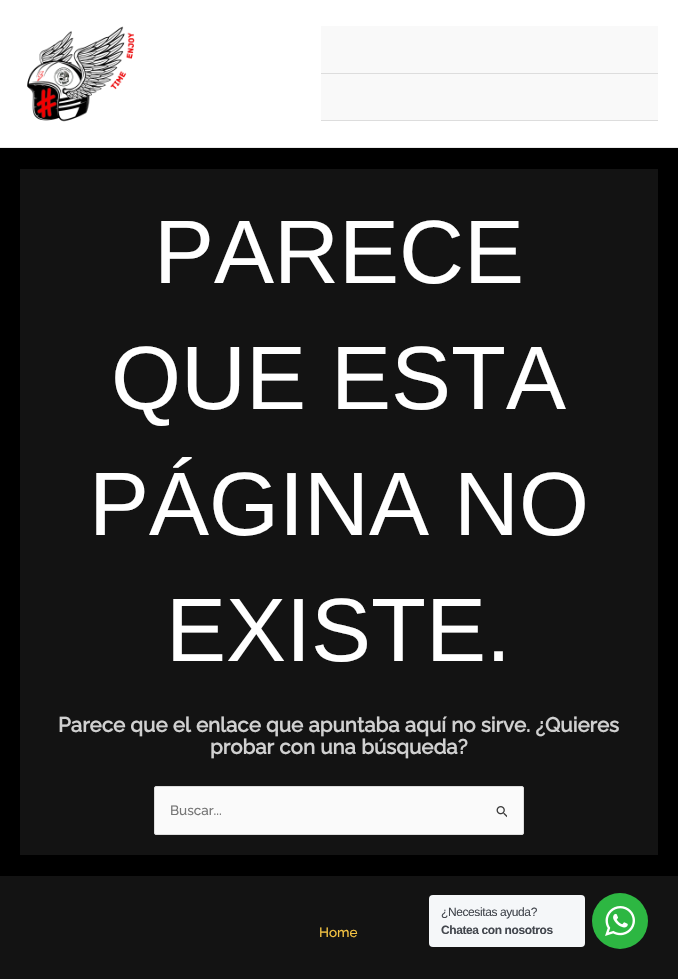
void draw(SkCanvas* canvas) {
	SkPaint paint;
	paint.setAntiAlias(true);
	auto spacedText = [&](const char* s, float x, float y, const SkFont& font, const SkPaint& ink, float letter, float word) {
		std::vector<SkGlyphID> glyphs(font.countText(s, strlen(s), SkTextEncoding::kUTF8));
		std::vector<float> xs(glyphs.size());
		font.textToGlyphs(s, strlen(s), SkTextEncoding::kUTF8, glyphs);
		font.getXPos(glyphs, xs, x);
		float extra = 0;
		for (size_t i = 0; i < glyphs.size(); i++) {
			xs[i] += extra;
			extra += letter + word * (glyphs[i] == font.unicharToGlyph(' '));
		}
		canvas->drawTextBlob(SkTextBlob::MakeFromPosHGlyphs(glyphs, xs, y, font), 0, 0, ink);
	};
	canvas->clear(0xff000000);
	paint.setColor(0xffffffff);
	canvas->drawRect(SkRect::MakeXYWH(0, 0, 678, 147), paint);
	paint.setColor(0xffeaeaea);
	canvas->drawRect(SkRect::MakeXYWH(0, 147, 678, 1), paint);
	canvas->drawImageRect(SkImages::DeferredFromEncodedData(SkData::MakeFromFileName("img1.png")), SkRect::MakeXYWH(27, 26, 108, 96), SkSamplingOptions());
	paint.setColor(0xfff9f9f9);
	canvas->drawRect(SkRect::MakeXYWH(321, 26, 337, 94), paint);
	paint.setColor(0xffdddddd);
	canvas->drawRect(SkRect::MakeXYWH(321, 73, 337, 1), paint);
	canvas->drawRect(SkRect::MakeXYWH(321, 120, 337, 1), paint);
	paint.setColor(0xff131313);
	canvas->drawRect(SkRect::MakeXYWH(20, 169, 638, 686), paint);
	SkFont f1(fontMgr->matchFamilyStyle("Liberation Sans", SkFontStyle::Normal()), 90);
	f1.setSubpixel(true);
	paint.setColor(0xffffffff);
	canvas->drawString("PARECE", 154, 283, f1, paint);
	canvas->drawString("QUE ESTA", 111, 409, f1, paint);
	canvas->drawString("PÁGINA NO", 89, 535, f1, paint);
	canvas->drawString("EXISTE.", 166, 661, f1, paint);
	SkFont f2(fontMgr->matchFamilyStyle("Raleway", SkFontStyle::Bold()), 20.5);
	f2.setSubpixel(true);
	paint.setColor(0xffd0d0d0);
	canvas->drawString("Parece que el enlace que apuntaba aquí no sirve. ¿Quieres", 58, 732, f2, paint);
	canvas->drawString("probar con una búsqueda?", 210, 754, f2, paint);
	paint.setColor(0xfffafafa);
	canvas->drawRoundRect(SkRect::MakeXYWH(154.5, 786.5, 369, 48), 1.5, 1.5, paint);
	paint.setStroke(true);
	paint.setStrokeWidth(1);
	paint.setColor(0xffdddddd);
	canvas->drawRoundRect(SkRect::MakeXYWH(154.5, 786.5, 369, 48), 1.5, 1.5, paint);
	SkFont f3(fontMgr->matchFamilyStyle("Raleway", SkFontStyle(100, SkFontStyle::kNormal_Width, SkFontStyle::kUpright_Slant)), 13.5);
	f3.setSubpixel(true);
	paint.setStroke(false);
	paint.setColor(0xff757575);
	canvas->drawString("Buscar...", 170, 815, f3, paint);
	canvas->drawImageRect(SkImages::DeferredFromEncodedData(SkData::MakeFromFileName("img2.png")), SkRect::MakeXYWH(496, 806, 11, 12), SkSamplingOptions());
	paint.setColor(0xff131313);
	canvas->drawRect(SkRect::MakeXYWH(0, 876, 678, 103), paint);
	paint.setColor(0xfff3c242);
	canvas->drawString("Home", 319, 937, f3, paint);
	paint.setColor(0xfff5f7f9);
	canvas->drawRoundRect(SkRect::MakeXYWH(429, 895, 156, 52), 4, 4, paint);
	SkFont f4(fontMgr->matchFamilyStyle("Liberation Sans", SkFontStyle::Normal()), 12);
	f4.setSubpixel(true);
	paint.setColor(0xff43474e);
	spacedText("¿Necesitas ayuda?", 441, 916, f4, paint, -0.4, 0);
	SkFont f5(fontMgr->matchFamilyStyle("Liberation Sans", SkFontStyle::Bold()), 12);
	f5.setSubpixel(true);
	spacedText("Chatea con nosotros", 441, 934, f5, paint, -0.4, 0);
	paint.setColor(0xff2db742);
	canvas->drawCircle(620, 921, 28, paint);
	canvas->drawImageRect(SkImages::DeferredFromEncodedData(SkData::MakeFromFileName("img3.png")), SkRect::MakeXYWH(605, 906, 30, 30), SkSamplingOptions());
}
